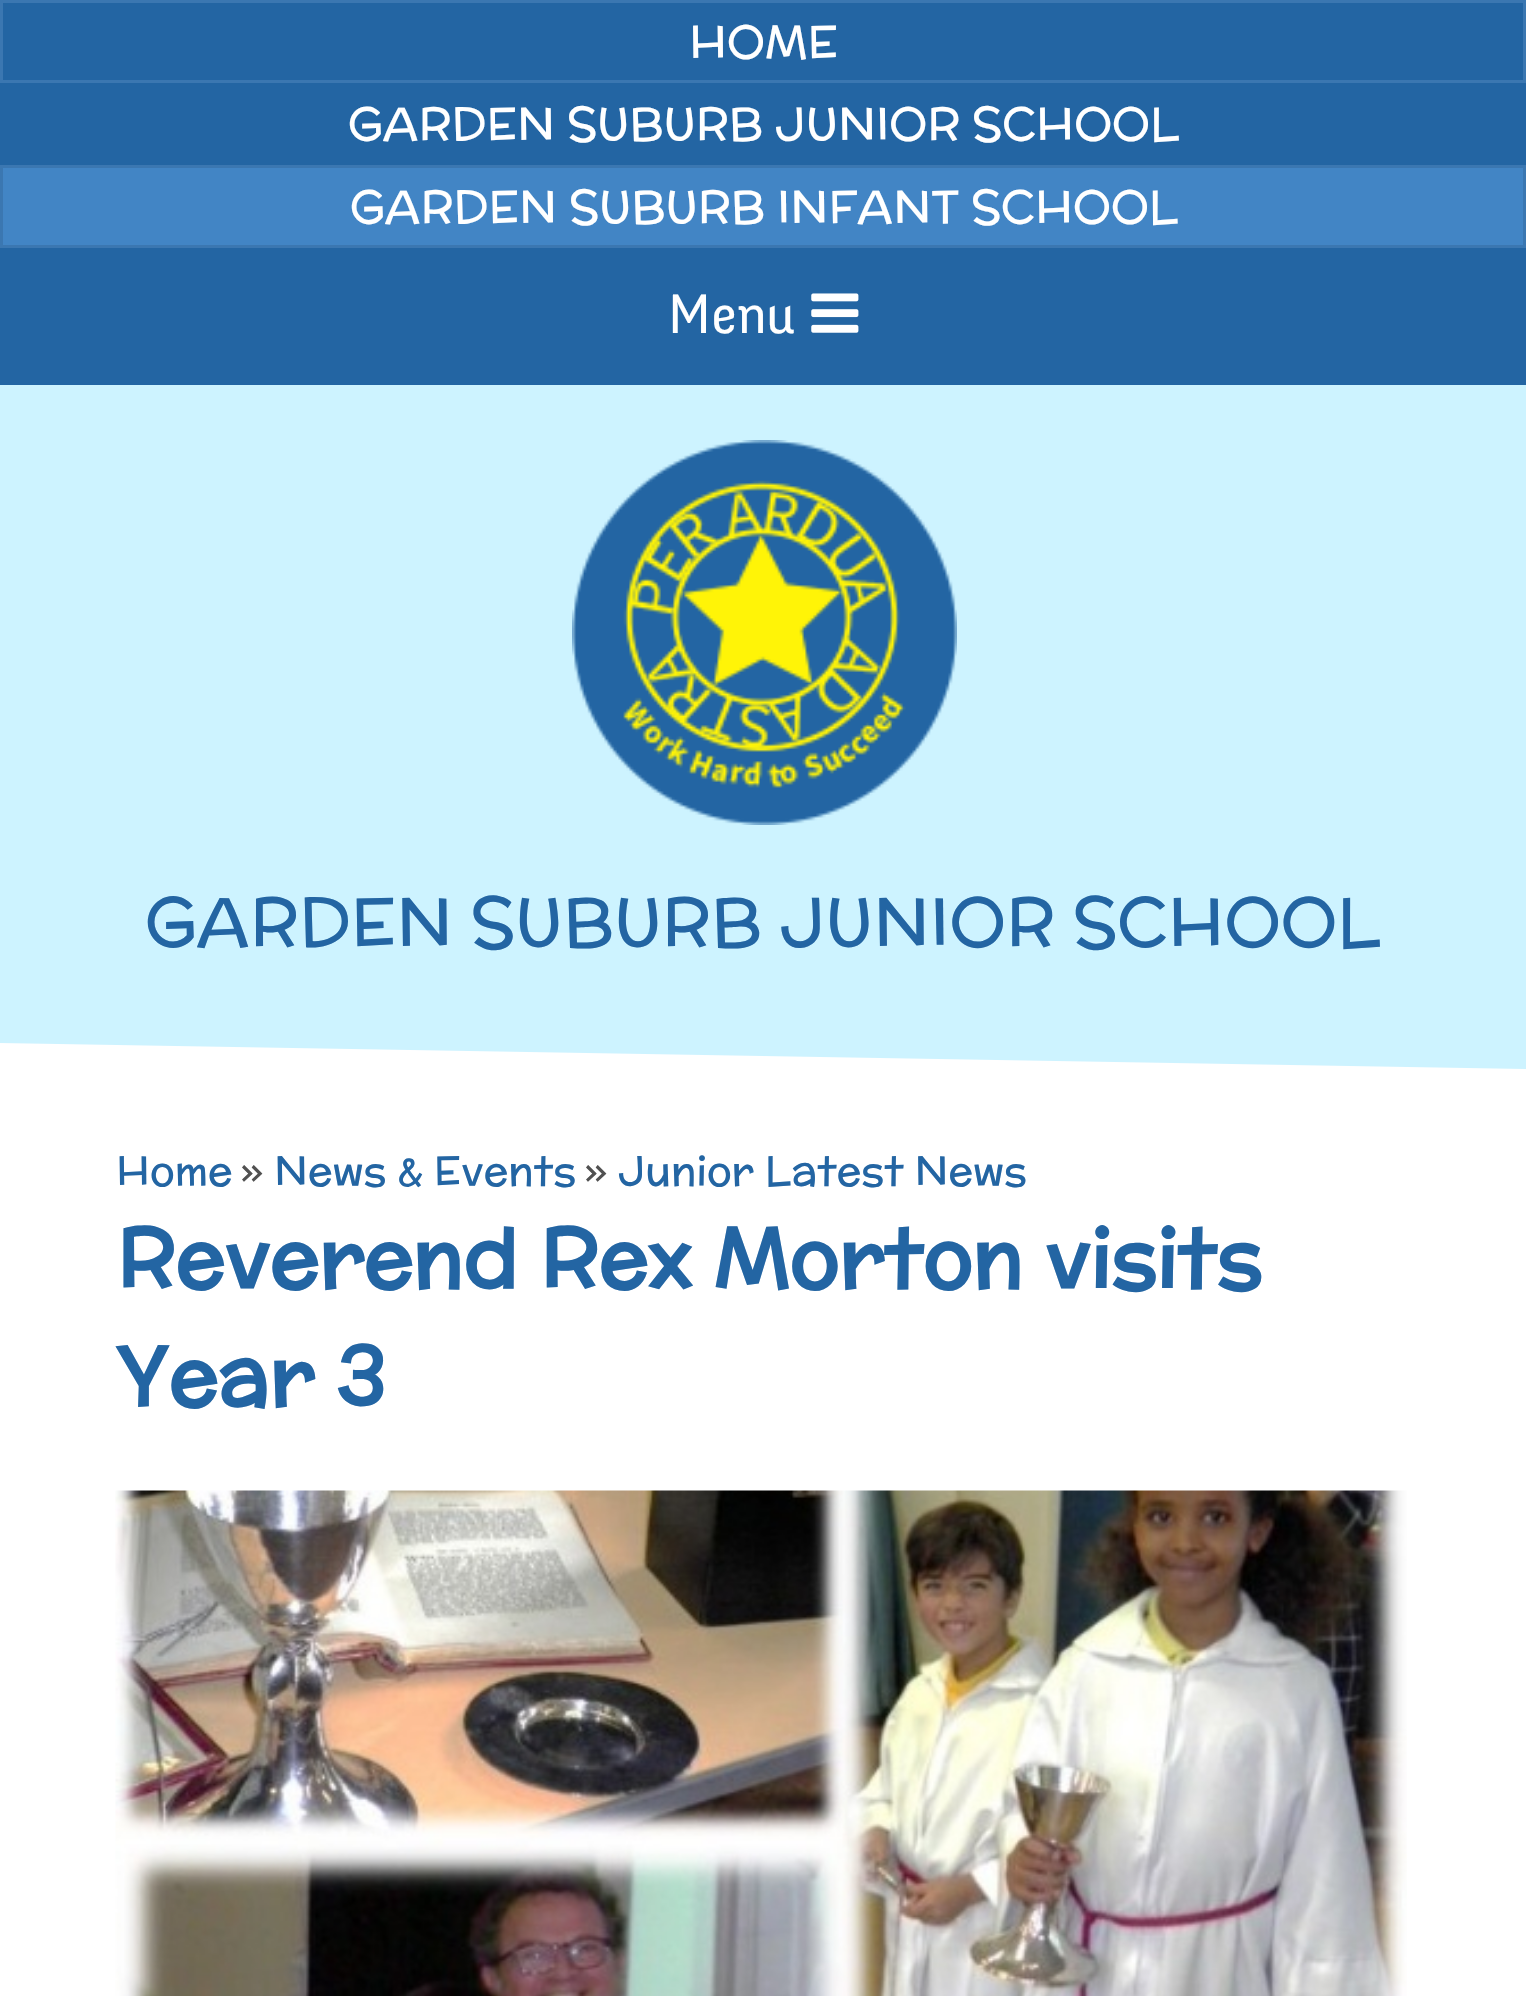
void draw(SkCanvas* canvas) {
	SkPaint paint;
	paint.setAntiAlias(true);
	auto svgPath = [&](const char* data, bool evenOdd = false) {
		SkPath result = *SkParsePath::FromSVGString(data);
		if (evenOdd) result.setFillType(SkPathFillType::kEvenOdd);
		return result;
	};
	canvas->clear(0xffcdf3ff);
	paint.setColor(0xff2365a3);
	canvas->drawRect(SkRect::MakeXYWH(1.5, 1.5, 1523, 80), paint);
	paint.setStroke(true);
	paint.setStrokeWidth(3);
	paint.setColor(0xff3b77b1);
	canvas->drawRect(SkRect::MakeXYWH(1.5, 1.5, 1523, 80), paint);
	SkFont f1(fontMgr->matchFamilyStyle("McLaren", SkFontStyle::Normal()), 46.25);
	f1.setSubpixel(true);
	paint.setStroke(false);
	paint.setColor(0xffffffff);
	canvas->drawString("HOME", 689, 58, f1, paint);
	paint.setColor(0xff2365a3);
	canvas->drawRect(SkRect::MakeXYWH(0, 83, 1526, 82), paint);
	paint.setColor(0xffffffff);
	canvas->drawString("GARDEN SUBURB JUNIOR SCHOOL", 348, 140, f1, paint);
	paint.setColor(0xff4285c5);
	canvas->drawRect(SkRect::MakeXYWH(1.5, 166.5, 1523, 80), paint);
	paint.setStroke(true);
	paint.setColor(0xff3b77b1);
	canvas->drawRect(SkRect::MakeXYWH(1.5, 166.5, 1523, 80), paint);
	paint.setStroke(false);
	paint.setColor(0xffffffff);
	canvas->drawString("GARDEN SUBURB INFANT SCHOOL", 350, 223, f1, paint);
	paint.setColor(0xff2365a3);
	canvas->drawRect(SkRect::MakeXYWH(0, 248, 1526, 137), paint);
	SkFont f2(fontMgr->matchFamilyStyle("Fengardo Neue", SkFontStyle::Normal()), 55);
	f2.setSubpixel(true);
	paint.setColor(0xffffffff);
	canvas->drawString("Menu", 668, 333, f2, paint);
	canvas->drawImageRect(SkImages::DeferredFromEncodedData(SkData::MakeFromFileName("img1.png")), SkRect::MakeXYWH(811, 293, 48, 40), SkSamplingOptions());
	canvas->drawImageRect(SkImages::DeferredFromEncodedData(SkData::MakeFromFileName("img2.png")), SkRect::MakeXYWH(572, 440, 385, 385), SkSamplingOptions());
	SkFont f3(fontMgr->matchFamilyStyle("McLaren", SkFontStyle::Normal()), 68.75);
	f3.setSubpixel(true);
	paint.setColor(0xff2365a3);
	canvas->drawString("GARDEN SUBURB JUNIOR SCHOOL", 145, 946, f3, paint);
	paint.setColor(0xffffffff);
	canvas->drawRect(SkRect::MakeXYWH(0, 1318, 1526, 678), paint);
	canvas->drawPath(svgPath("M0 1043L1526 1069V1344L0 1318Z"), paint);
	SkFont f4(fontMgr->matchFamilyStyle("McLaren", SkFontStyle::Normal()), 41.25);
	f4.setSubpixel(true);
	paint.setColor(0xff2365a3);
	canvas->drawString("Home", 116, 1185, f4, paint);
	SkFont f5(fontMgr->matchFamilyStyle("Fengardo Neue", SkFontStyle::Normal()), 47);
	f5.setSubpixel(true);
	paint.setColor(0xff515151);
	canvas->drawString("»", 241, 1185, f5, paint);
	paint.setColor(0xff2365a3);
	canvas->drawString("News & Events", 274, 1185, f4, paint);
	paint.setColor(0xff515151);
	canvas->drawString("»", 585, 1185, f5, paint);
	paint.setColor(0xff2365a3);
	canvas->drawString("Junior Latest News", 618, 1185, f4, paint);
	SkFont f6(fontMgr->matchFamilyStyle("McLaren", SkFontStyle::Bold()), 82.5);
	f6.setSubpixel(true);
	canvas->drawString("Reverend Rex Morton visits", 116, 1287, f6, paint);
	canvas->drawString("Year 3", 116, 1405, f6, paint);
	canvas->drawImageRect(SkImages::DeferredFromEncodedData(SkData::MakeFromFileName("img3.png")), SkRect::MakeXYWH(115, 1490, 1292, 506), SkSamplingOptions());
}
